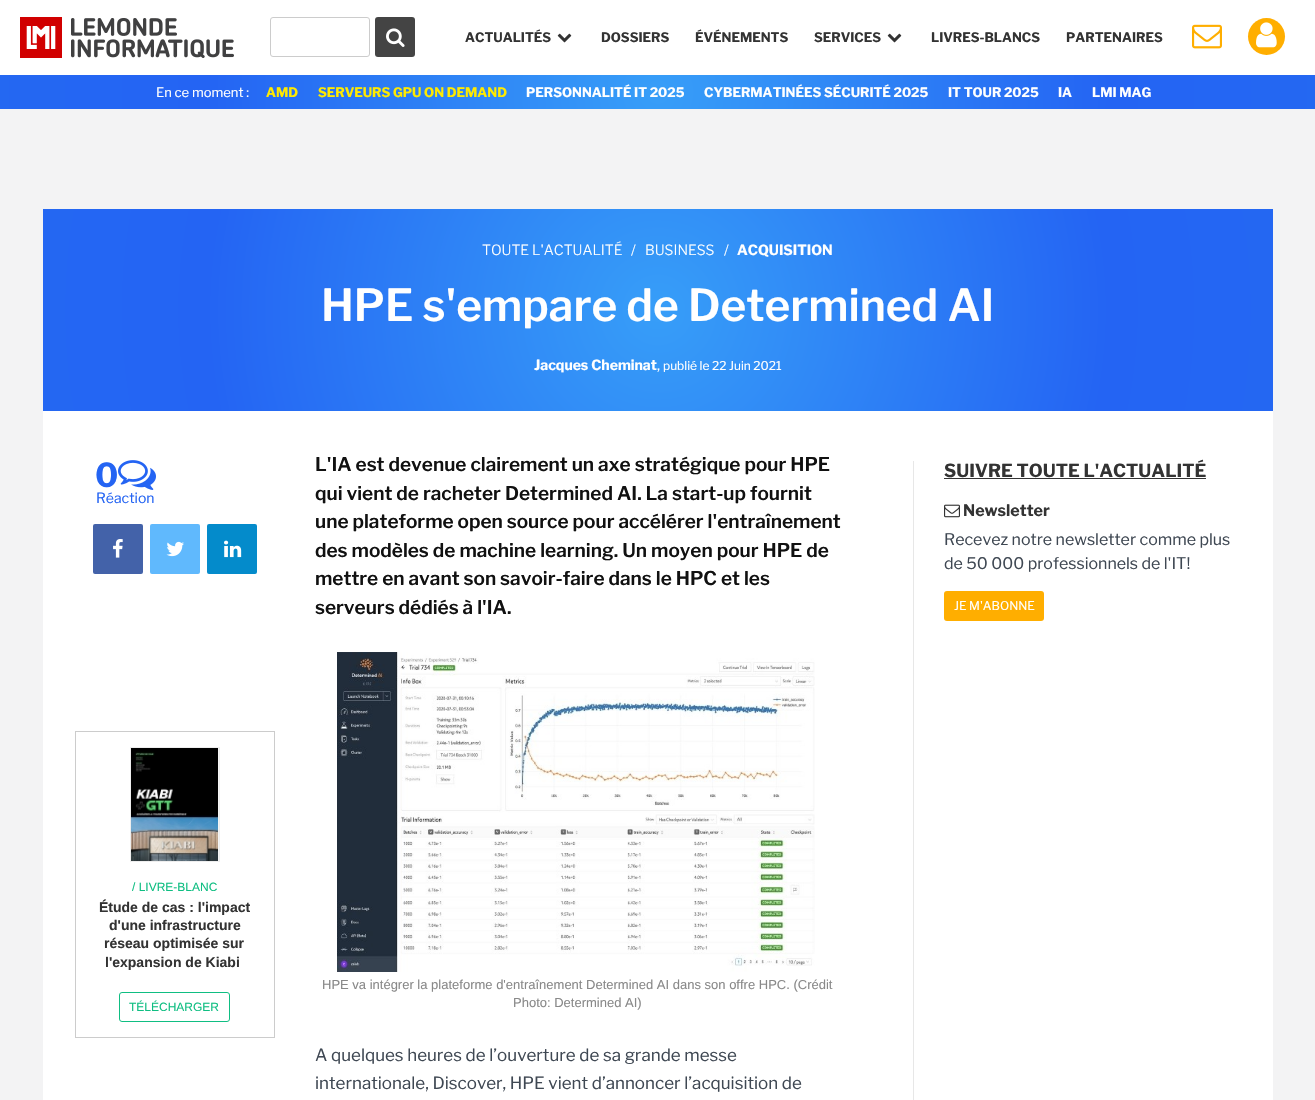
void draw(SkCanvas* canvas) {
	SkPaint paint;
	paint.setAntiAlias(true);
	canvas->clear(0xfff3f3f4);
	paint.setColor(0xffffffff);
	canvas->drawRect(SkRect::MakeXYWH(0, 0, 1315, 75), paint);
	canvas->drawImageRect(SkImages::DeferredFromEncodedData(SkData::MakeFromFileName("img1.png")), SkRect::MakeXYWH(20, 17, 214, 41), SkSamplingOptions());
	paint.setStroke(true);
	paint.setStrokeWidth(1);
	paint.setColor(0xffcccccc);
	canvas->drawRoundRect(SkRect::MakeXYWH(270.5, 17.5, 99, 39), 2.5, 2.5, paint);
	paint.setStroke(false);
	paint.setColor(0xff444444);
	canvas->drawRoundRect(SkRect::MakeXYWH(375, 17, 40, 40), 3, 3, paint);
	canvas->drawImageRect(SkImages::DeferredFromEncodedData(SkData::MakeFromFileName("img2.png")), SkRect::MakeXYWH(386, 28, 19, 19), SkSamplingOptions());
	SkFont f1(fontMgr->matchFamilyStyle("Libre Franklin", SkFontStyle::Bold()), 13);
	f1.setSubpixel(true);
	paint.setColor(0xff333333);
	canvas->drawString("ACTUALITÉS", 465, 42, f1, paint);
	canvas->drawImageRect(SkImages::DeferredFromEncodedData(SkData::MakeFromFileName("img3.png")), SkRect::MakeXYWH(557, 33, 15, 10), SkSamplingOptions());
	canvas->drawString("DOSSIERS", 601, 42, f1, paint);
	canvas->drawString("ÉVÉNEMENTS", 695, 42, f1, paint);
	canvas->drawString("SERVICES", 814, 42, f1, paint);
	canvas->drawImageRect(SkImages::DeferredFromEncodedData(SkData::MakeFromFileName("img3.png")), SkRect::MakeXYWH(887, 33, 15, 10), SkSamplingOptions());
	canvas->drawString("LIVRES-BLANCS", 931, 42, f1, paint);
	canvas->drawString("PARTENAIRES", 1066, 42, f1, paint);
	canvas->drawImageRect(SkImages::DeferredFromEncodedData(SkData::MakeFromFileName("img4.png")), SkRect::MakeXYWH(1192, 24, 30, 25), SkSamplingOptions());
	paint.setColor(0xffffae00);
	canvas->drawCircle(1266.5, 36.5, 18.5, paint);
	canvas->drawImageRect(SkImages::DeferredFromEncodedData(SkData::MakeFromFileName("img5.png")), SkRect::MakeXYWH(1256, 22, 21, 26), SkSamplingOptions());
	{
		const SkColor colors[] = {0xff379ef8, 0xff2464f3, 0xff2378ef};
		const float stops[] = {0, 0.2, 0.7};
		paint.setShader(SkGradientShader::MakeRadial({658, 92}, 2258, colors, stops, 3, SkTileMode::kClamp));
		paint.setAlpha(255);
	}
	canvas->drawRect(SkRect::MakeXYWH(0, 75, 1315, 34), paint);
	SkFont f2(fontMgr->matchFamilyStyle("Libre Franklin", SkFontStyle::Normal()), 13);
	f2.setSubpixel(true);
	paint.setShader(nullptr);
	paint.setColor(0xffffffff);
	canvas->drawString("En ce moment :", 156, 97, f2, paint);
	paint.setColor(0xffffea00);
	canvas->drawString("AMD", 266, 97, f1, paint);
	canvas->drawString("SERVEURS GPU ON DEMAND", 318, 97, f1, paint);
	paint.setColor(0xffffffff);
	canvas->drawString("PERSONNALITÉ IT 2025", 526, 97, f1, paint);
	canvas->drawString("CYBERMATINÉES SÉCURITÉ 2025", 704, 97, f1, paint);
	canvas->drawString("IT TOUR 2025", 948, 97, f1, paint);
	canvas->drawString("IA", 1058, 97, f1, paint);
	canvas->drawString("LMI MAG", 1092, 97, f1, paint);
	{
		const SkColor colors[] = {0xff379ef8, 0xff2464f3, 0xff2378ef};
		const float stops[] = {0, 0.2, 0.7};
		paint.setShader(SkGradientShader::MakeRadial({658, 310}, 2258, colors, stops, 3, SkTileMode::kClamp));
		paint.setAlpha(255);
	}
	canvas->drawRect(SkRect::MakeXYWH(43, 209, 1230, 202), paint);
	SkFont f3(fontMgr->matchFamilyStyle("Libre Franklin", SkFontStyle(300, SkFontStyle::kNormal_Width, SkFontStyle::kUpright_Slant)), 14);
	f3.setSubpixel(true);
	paint.setShader(nullptr);
	paint.setColor(0xffffffff);
	canvas->drawString("TOUTE L'ACTUALITÉ", 482, 255, f3, paint);
	canvas->drawString("/", 631, 255, f3, paint);
	canvas->drawString("BUSINESS", 645, 255, f3, paint);
	canvas->drawString("/", 724, 255, f3, paint);
	SkFont f4(fontMgr->matchFamilyStyle("Libre Franklin", SkFontStyle::Bold()), 14);
	f4.setSubpixel(true);
	canvas->drawString("ACQUISITION", 737, 255, f4, paint);
	SkFont f5(fontMgr->matchFamilyStyle("Libre Franklin", SkFontStyle(600, SkFontStyle::kNormal_Width, SkFontStyle::kUpright_Slant)), 44);
	f5.setSubpixel(true);
	canvas->drawString("HPE s'empare de Determined AI", 321, 321, f5, paint);
	canvas->drawString("Jacques Cheminat", 534, 370, f4, paint);
	SkFont f6(fontMgr->matchFamilyStyle("Libre Franklin", SkFontStyle::Normal()), 14);
	f6.setSubpixel(true);
	canvas->drawString(",", 657, 370, f6, paint);
	SkFont f7(fontMgr->matchFamilyStyle("Libre Franklin", SkFontStyle::Normal()), 12);
	f7.setSubpixel(true);
	canvas->drawString("publié le 22 Juin 2021", 663, 370, f7, paint);
	canvas->drawRect(SkRect::MakeXYWH(43, 411, 1230, 689), paint);
	SkFont f8(fontMgr->matchFamilyStyle("Libre Franklin", SkFontStyle::Bold()), 33);
	f8.setSubpixel(true);
	paint.setColor(0xff2464f3);
	canvas->drawString("0", 95, 487, f8, paint);
	canvas->drawImageRect(SkImages::DeferredFromEncodedData(SkData::MakeFromFileName("img6.png")), SkRect::MakeXYWH(118, 460, 38, 30), SkSamplingOptions());
	canvas->drawString("Réaction", 96, 503, f6, paint);
	paint.setColor(0xff4362a9);
	canvas->drawRoundRect(SkRect::MakeXYWH(93, 524, 50, 50), 2, 2, paint);
	canvas->drawImageRect(SkImages::DeferredFromEncodedData(SkData::MakeFromFileName("img7.png")), SkRect::MakeXYWH(113, 539, 10, 19), SkSamplingOptions());
	paint.setColor(0xff60b9fd);
	canvas->drawRoundRect(SkRect::MakeXYWH(150, 524, 50, 50), 2, 2, paint);
	canvas->drawImageRect(SkImages::DeferredFromEncodedData(SkData::MakeFromFileName("img8.png")), SkRect::MakeXYWH(166, 541, 18, 16), SkSamplingOptions());
	paint.setColor(0xff048bcb);
	canvas->drawRoundRect(SkRect::MakeXYWH(207, 524, 50, 50), 2, 2, paint);
	canvas->drawImageRect(SkImages::DeferredFromEncodedData(SkData::MakeFromFileName("img9.png")), SkRect::MakeXYWH(224, 540, 18, 18), SkSamplingOptions());
	paint.setStroke(true);
	paint.setColor(0xffcccccc);
	canvas->drawRect(SkRect::MakeXYWH(75.5, 731.5, 199, 306), paint);
	paint.setStroke(false);
	paint.setColor(0xfff5f5f5);
	canvas->drawRect(SkRect::MakeXYWH(218, 748, 1, 113), paint);
	paint.setStroke(true);
	paint.setColor(0xffeeeeee);
	canvas->drawRect(SkRect::MakeXYWH(130.5, 747.5, 89, 114), paint);
	canvas->drawImageRect(SkImages::DeferredFromEncodedData(SkData::MakeFromFileName("img10.png")), SkRect::MakeXYWH(131, 748, 87, 113), SkSamplingOptions());
	SkFont f9(fontMgr->matchFamilyStyle("Liberation Sans", SkFontStyle::Normal()), 12);
	f9.setSubpixel(true);
	paint.setStroke(false);
	paint.setColor(0xff0fbe82);
	canvas->drawString("/ LIVRE-BLANC", 132, 891, f9, paint);
	SkFont f10(fontMgr->matchFamilyStyle("Liberation Sans", SkFontStyle::Bold()), 14);
	f10.setSubpixel(true);
	paint.setColor(0xff333333);
	canvas->drawString("Étude de cas : l'impact", 99, 912, f10, paint);
	canvas->drawString("d'une infrastructure", 109, 930, f10, paint);
	canvas->drawString("réseau optimisée sur", 104, 948, f10, paint);
	canvas->drawString("l'expansion de Kiabi", 105, 967, f10, paint);
	paint.setStroke(true);
	paint.setColor(0xff0fbe82);
	canvas->drawRoundRect(SkRect::MakeXYWH(119.5, 992.5, 110, 29), 2.5, 2.5, paint);
	paint.setStroke(false);
	canvas->drawString("TÉLÉCHARGER", 129, 1011, f9, paint);
	SkFont f11(fontMgr->matchFamilyStyle("Libre Franklin", SkFontStyle(600, SkFontStyle::kNormal_Width, SkFontStyle::kUpright_Slant)), 19);
	f11.setSubpixel(true);
	paint.setColor(0xff111111);
	canvas->drawString("L'IA est devenue clairement un axe stratégique pour HPE", 315, 471, f11, paint);
	canvas->drawString("qui vient de racheter Determined AI. La start-up fournit", 315, 500, f11, paint);
	canvas->drawString("une plateforme open source pour accélérer l'entraînement", 315, 528, f11, paint);
	canvas->drawString("des modèles de machine learning. Un moyen pour HPE de", 315, 557, f11, paint);
	canvas->drawString("mettre en avant son savoir-faire dans le HPC et les", 315, 585, f11, paint);
	canvas->drawString("serveurs dédiés à l'IA.", 315, 614, f11, paint);
	canvas->drawImageRect(SkImages::DeferredFromEncodedData(SkData::MakeFromFileName("img11.png")), SkRect::MakeXYWH(337, 652, 478, 320), SkSamplingOptions());
	SkFont f12(fontMgr->matchFamilyStyle("Liberation Sans", SkFontStyle::Normal()), 13);
	f12.setSubpixel(true);
	paint.setColor(0xff898989);
	canvas->drawString("HPE va intégrer la plateforme d'entraînement Determined AI dans son offre HPC. (Crédit", 322, 989, f12, paint);
	canvas->drawString("Photo: Determined AI)", 513, 1007, f12, paint);
	SkFont f13(fontMgr->matchFamilyStyle("Libre Franklin", SkFontStyle::Normal()), 17);
	f13.setSubpixel(true);
	paint.setColor(0xff3f4853);
	canvas->drawString("A quelques heures de l’ouverture de sa grande messe", 315, 1061, f13, paint);
	canvas->drawString("internationale, Discover, HPE vient d’annoncer l’acquisition de", 315, 1089, f13, paint);
	paint.setColor(0xffe7e7e7);
	canvas->drawRect(SkRect::MakeXYWH(913, 461, 1, 639), paint);
	SkFont f14(fontMgr->matchFamilyStyle("Libre Franklin", SkFontStyle::Bold()), 18);
	f14.setSubpixel(true);
	paint.setColor(0xff333333);
	canvas->drawString("SUIVRE TOUTE L'ACTUALITÉ", 944, 477, f14, paint);
	canvas->drawRect(SkRect::MakeXYWH(944, 478, 262, 1), paint);
	canvas->drawImageRect(SkImages::DeferredFromEncodedData(SkData::MakeFromFileName("img12.png")), SkRect::MakeXYWH(944, 504, 16, 14), SkSamplingOptions());
	SkFont f15(fontMgr->matchFamilyStyle("Libre Franklin", SkFontStyle::Bold()), 16);
	f15.setSubpixel(true);
	canvas->drawString("Newsletter", 963, 516, f15, paint);
	SkFont f16(fontMgr->matchFamilyStyle("Libre Franklin", SkFontStyle::Normal()), 16);
	f16.setSubpixel(true);
	paint.setColor(0xff3f4853);
	canvas->drawString("Recevez notre newsletter comme plus", 944, 545, f16, paint);
	canvas->drawString("de 50 000 professionnels de l'IT!", 944, 569, f16, paint);
	paint.setColor(0xffffae00);
	canvas->drawRoundRect(SkRect::MakeXYWH(944, 591, 100, 30), 3, 3, paint);
	paint.setColor(0xffffffff);
	canvas->drawString("JE M'ABONNE", 954, 610, f7, paint);
}
